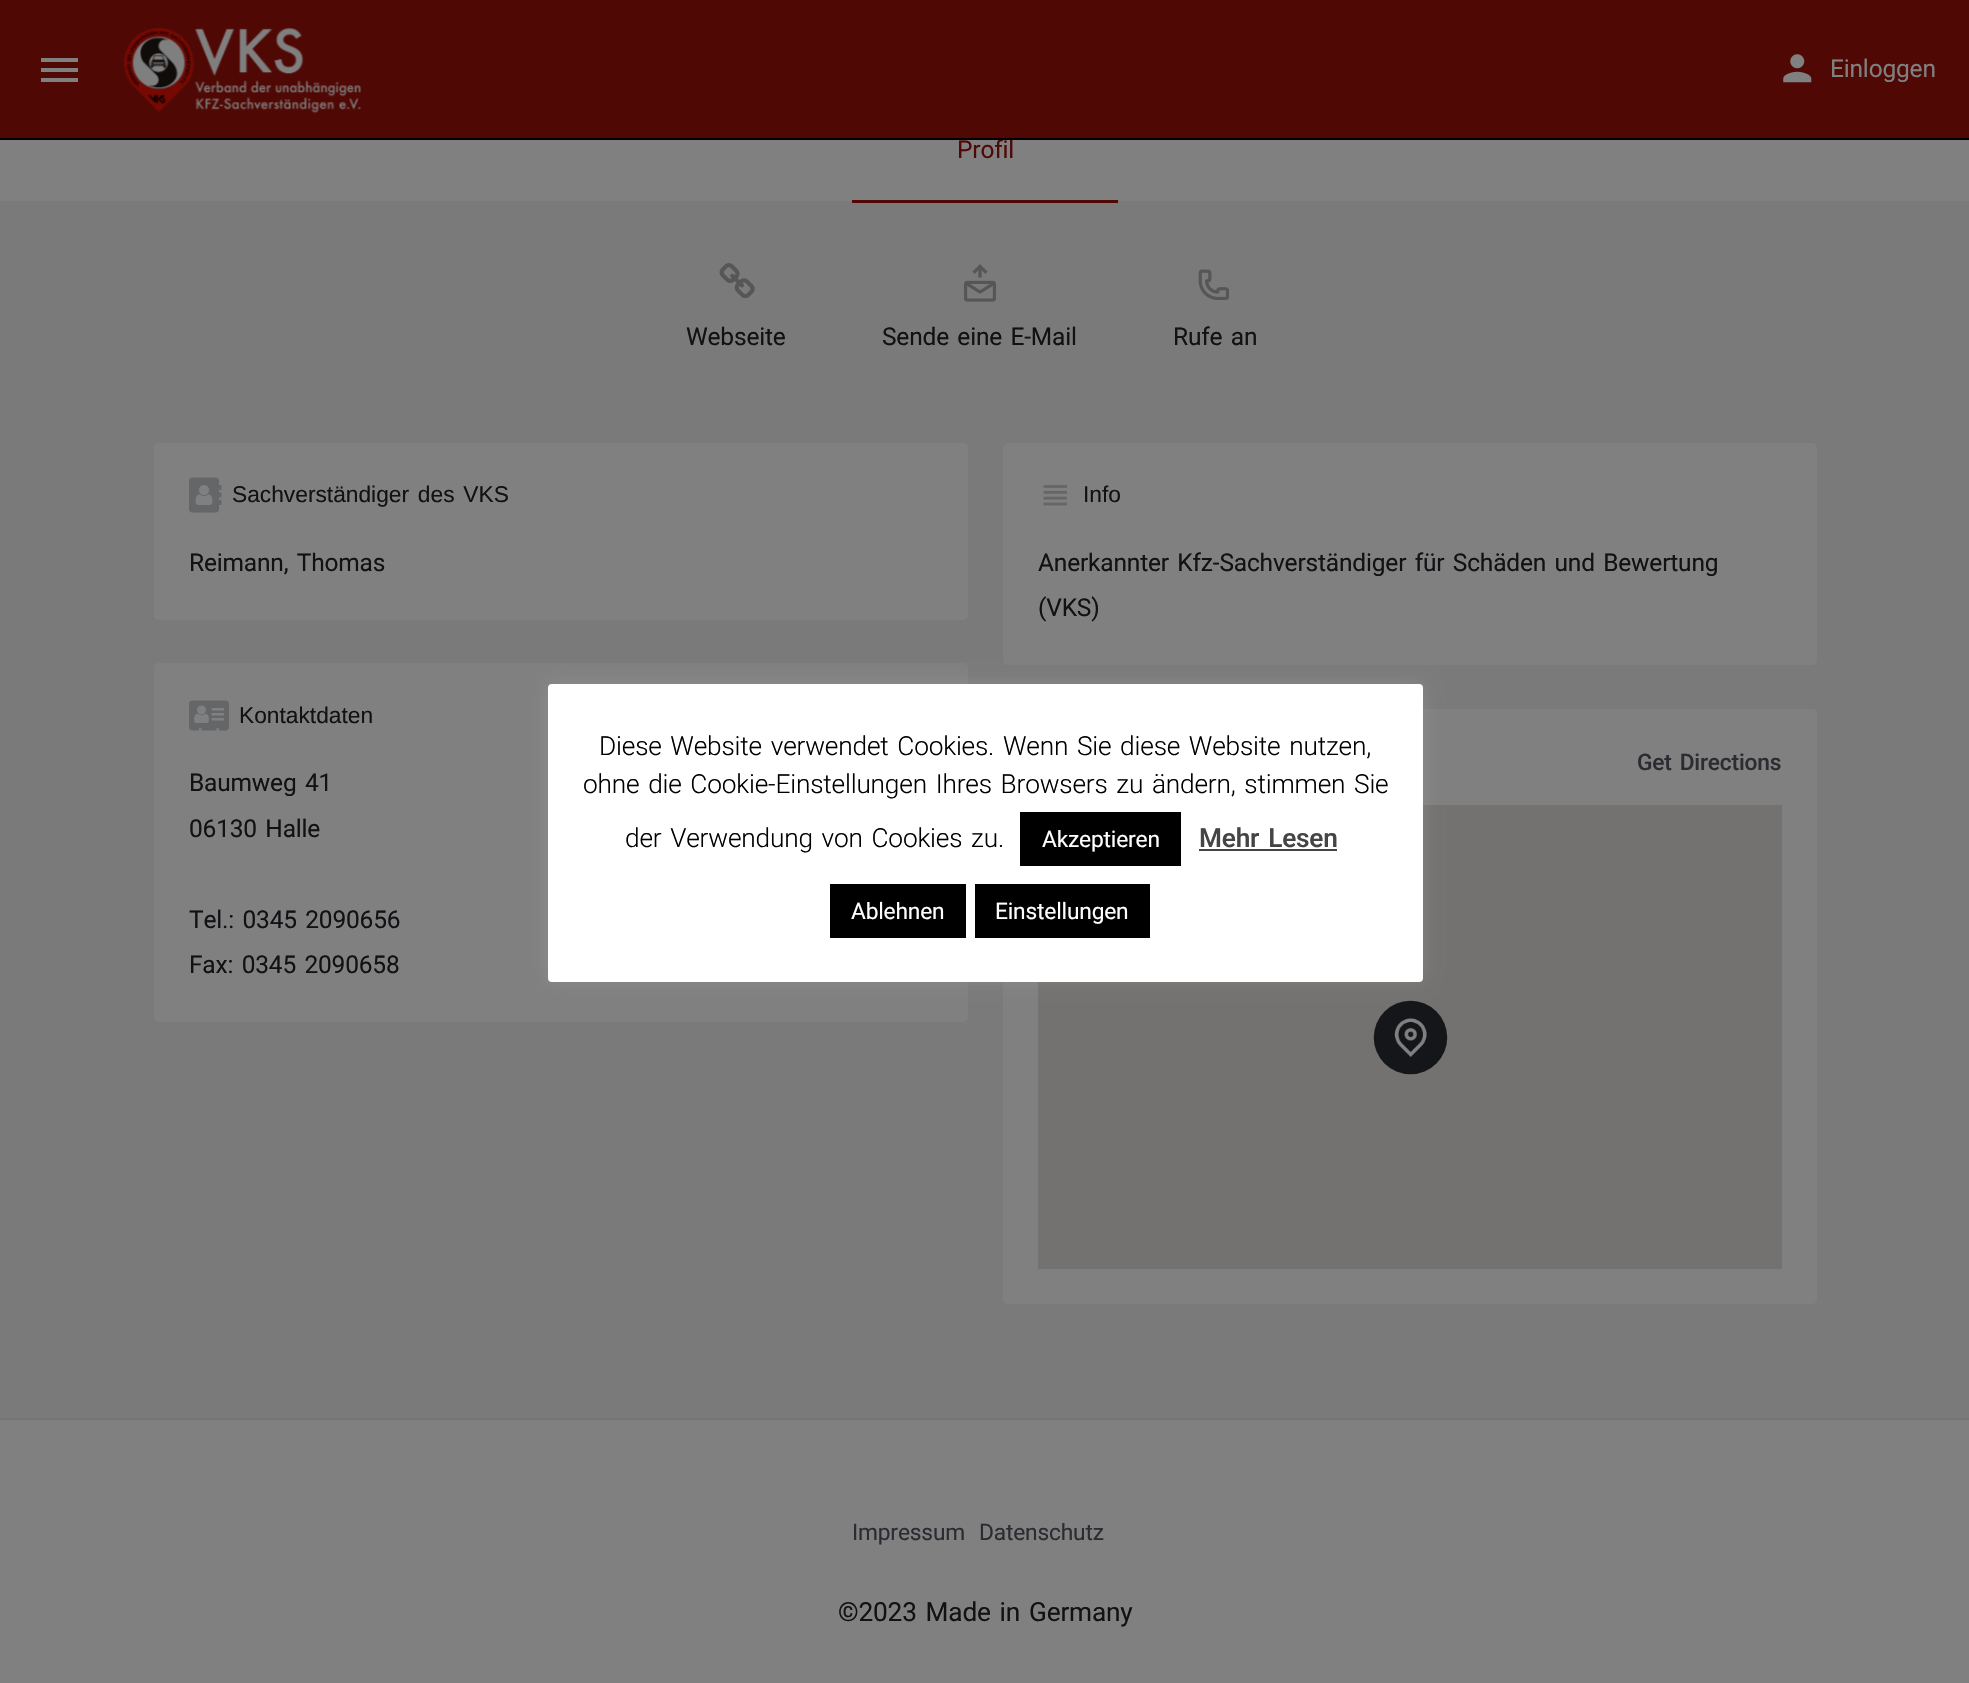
void draw(SkCanvas* canvas) {
	SkPaint paint;
	paint.setAntiAlias(true);
	auto spacedText = [&](const char* s, float x, float y, const SkFont& font, const SkPaint& ink, float letter, float word) {
		std::vector<SkGlyphID> glyphs(font.countText(s, strlen(s), SkTextEncoding::kUTF8));
		std::vector<float> xs(glyphs.size());
		font.textToGlyphs(s, strlen(s), SkTextEncoding::kUTF8, glyphs);
		font.getXPos(glyphs, xs, x);
		float extra = 0;
		for (size_t i = 0; i < glyphs.size(); i++) {
			xs[i] += extra;
			extra += letter + word * (glyphs[i] == font.unicharToGlyph(' '));
		}
		canvas->drawTextBlob(SkTextBlob::MakeFromPosHGlyphs(glyphs, xs, y, font), 0, 0, ink);
	};
	auto svgPath = [&](const char* data, bool evenOdd = false) {
		SkPath result = *SkParsePath::FromSVGString(data);
		if (evenOdd) result.setFillType(SkPathFillType::kEvenOdd);
		return result;
	};
	canvas->clear(0xff808080);
	paint.setColor(0xff7a7a7a);
	canvas->drawRect(SkRect::MakeXYWH(0, 201, 1969, 1217), paint);
	paint.setColor(0xff757575);
	canvas->drawRect(SkRect::MakeXYWH(0, 1418, 1969, 2), paint);
	paint.setColor(0xff4f0804);
	canvas->drawRect(SkRect::MakeXYWH(0, 0, 1969, 138), paint);
	SkFont f1(fontMgr->matchFamilyStyle("Roboto", SkFontStyle::Normal()), 24.5);
	f1.setSubpixel(true);
	spacedText("Profil", 957, 158, f1, paint, -0.18, 0);
	paint.setColor(0xff000000);
	canvas->drawRect(SkRect::MakeXYWH(0, 138, 1969, 2), paint);
	paint.setColor(0xff808080);
	canvas->drawPath(svgPath("M41 58H78V62H41ZM41 72V68H78V72ZM41 82V78H78V82Z"), paint);
	canvas->drawImageRect(SkImages::DeferredFromEncodedData(SkData::MakeFromFileName("img1.png")), SkRect::MakeXYWH(123, 27, 239, 87), SkSamplingOptions());
	canvas->drawImageRect(SkImages::DeferredFromEncodedData(SkData::MakeFromFileName("img2.png")), SkRect::MakeXYWH(1783, 54, 29, 29), SkSamplingOptions());
	spacedText("Einloggen", 1830, 77, f1, paint, -0.18, 0);
	paint.setColor(0xff4f0804);
	canvas->drawRect(SkRect::MakeXYWH(852, 200, 266, 3), paint);
	canvas->drawImageRect(SkImages::DeferredFromEncodedData(SkData::MakeFromFileName("img3.png")), SkRect::MakeXYWH(719, 263, 36, 36), SkSamplingOptions());
	paint.setColor(0xff121215);
	spacedText("Webseite", 686, 345, f1, paint, -0.18, 0);
	canvas->drawImageRect(SkImages::DeferredFromEncodedData(SkData::MakeFromFileName("img4.png")), SkRect::MakeXYWH(964, 264, 32, 38), SkSamplingOptions());
	spacedText("Sende eine E-Mail", 882, 345, f1, paint, -0.18, 2.5);
	canvas->drawImageRect(SkImages::DeferredFromEncodedData(SkData::MakeFromFileName("img5.png")), SkRect::MakeXYWH(1198, 269, 31, 31), SkSamplingOptions());
	spacedText("Rufe an", 1173, 345, f1, paint, -0.18, 2.5);
	paint.setColor(0xff808080);
	canvas->drawRoundRect(SkRect::MakeXYWH(154, 443, 814, 177), 5, 5, paint);
	canvas->drawImageRect(SkImages::DeferredFromEncodedData(SkData::MakeFromFileName("img6.png")), SkRect::MakeXYWH(189, 477, 33, 36), SkSamplingOptions());
	SkFont f2(fontMgr->matchFamilyStyle("Liberation Sans", SkFontStyle::Normal()), 22.75);
	f2.setSubpixel(true);
	paint.setColor(0xff121215);
	spacedText("Sachverständiger des VKS", 232, 502, f2, paint, 0, 2.5);
	spacedText("Reimann, Thomas", 189, 571, f1, paint, -0.18, 2.5);
	paint.setColor(0xff808080);
	canvas->drawRoundRect(SkRect::MakeXYWH(1003, 443, 814, 222), 5, 5, paint);
	canvas->drawImageRect(SkImages::DeferredFromEncodedData(SkData::MakeFromFileName("img7.png")), SkRect::MakeXYWH(1043, 485, 24, 21), SkSamplingOptions());
	paint.setColor(0xff121215);
	canvas->drawString("Info", 1083, 502, f2, paint);
	spacedText("Anerkannter Kfz-Sachverständiger für Schäden und Bewertung", 1038, 571, f1, paint, -0.18, 2.5);
	spacedText("(VKS)", 1038, 616, f1, paint, -0.18, 0);
	paint.setColor(0xff808080);
	canvas->drawRoundRect(SkRect::MakeXYWH(154, 663, 814, 359), 5, 5, paint);
	canvas->drawImageRect(SkImages::DeferredFromEncodedData(SkData::MakeFromFileName("img8.png")), SkRect::MakeXYWH(189, 700, 40, 31), SkSamplingOptions());
	paint.setColor(0xff121215);
	canvas->drawString("Kontaktdaten", 239, 723, f2, paint);
	spacedText("Baumweg 41", 189, 791, f1, paint, -0.18, 2.5);
	spacedText("06130 Halle", 189, 837, f1, paint, -0.18, 2.5);
	spacedText("Tel.: 0345 2090656", 189, 928, f1, paint, -0.18, 2.5);
	spacedText("Fax: 0345 2090658", 189, 973, f1, paint, -0.18, 2.5);
	paint.setColor(0xff808080);
	canvas->drawRoundRect(SkRect::MakeXYWH(1003, 709, 814, 595), 5, 5, paint);
	SkFont f3(fontMgr->matchFamilyStyle("Roboto", SkFontStyle(500, SkFontStyle::kNormal_Width, SkFontStyle::kUpright_Slant)), 22.75);
	f3.setSubpixel(true);
	paint.setColor(0xff2b2b31);
	spacedText("Get Directions", 1637, 770, f3, paint, -0.18, 2.5);
	paint.setColor(0xff737270);
	canvas->drawRect(SkRect::MakeXYWH(1038, 805, 744, 464), paint);
	canvas->drawImageRect(SkImages::DeferredFromEncodedData(SkData::MakeFromFileName("img9.png")), SkRect::MakeXYWH(1373, 1000, 75, 75), SkSamplingOptions());
	paint.setColor(0x4dacabab);
	paint.setMaskFilter(SkMaskFilter::MakeBlur(kNormal_SkBlurStyle, 9));
	canvas->drawRoundRect(SkRect::MakeXYWH(548, 683, 875, 297), 4, 4, paint);
	paint.setMaskFilter(nullptr);
	paint.setColor(0xffffffff);
	canvas->drawRoundRect(SkRect::MakeXYWH(548, 684, 875, 298), 4, 4, paint);
	SkFont f4(fontMgr->matchFamilyStyle("Roboto", SkFontStyle(300, SkFontStyle::kNormal_Width, SkFontStyle::kUpright_Slant)), 26.25);
	f4.setSubpixel(true);
	paint.setColor(0xff000000);
	spacedText("Diese Website verwendet Cookies. Wenn Sie diese Website nutzen,", 599, 755, f4, paint, -0.18, 2.5);
	spacedText("ohne die Cookie-Einstellungen Ihres Browsers zu ändern, stimmen Sie", 583, 793, f4, paint, -0.18, 2.5);
	spacedText("der Verwendung von Cookies zu.", 625, 847, f4, paint, -0.18, 2.5);
	canvas->drawRect(SkRect::MakeXYWH(1020, 812, 161, 54), paint);
	SkFont f5(fontMgr->matchFamilyStyle("Roboto", SkFontStyle::Normal()), 22.75);
	f5.setSubpixel(true);
	paint.setColor(0xffffffff);
	spacedText("Akzeptieren", 1042, 847, f5, paint, -0.18, 0);
	SkFont f6(fontMgr->matchFamilyStyle("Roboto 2", SkFontStyle(500, SkFontStyle::kNormal_Width, SkFontStyle::kUpright_Slant)), 26.25);
	f6.setSubpixel(true);
	paint.setColor(0xff444444);
	spacedText("Mehr Lesen", 1199, 847, f6, paint, -0.18, 2.5);
	canvas->drawRect(SkRect::MakeXYWH(1199, 849, 138, 2), paint);
	paint.setColor(0xff000000);
	canvas->drawRect(SkRect::MakeXYWH(830, 884, 136, 54), paint);
	paint.setColor(0xffffffff);
	spacedText("Ablehnen", 851, 919, f5, paint, -0.18, 0);
	paint.setColor(0xff000000);
	canvas->drawRect(SkRect::MakeXYWH(975, 884, 175, 54), paint);
	paint.setColor(0xffffffff);
	spacedText("Einstellungen", 995, 919, f5, paint, -0.18, 0);
	paint.setColor(0xff2b2b31);
	spacedText("Impressum", 852, 1540, f5, paint, -0.18, 0);
	spacedText("Datenschutz", 979, 1540, f5, paint, -0.18, 0);
	SkFont f7(fontMgr->matchFamilyStyle("Roboto", SkFontStyle::Normal()), 26.25);
	f7.setSubpixel(true);
	paint.setColor(0xff121215);
	spacedText("©2023 Made in Germany", 838, 1621, f7, paint, -0.18, 2.5);
}
